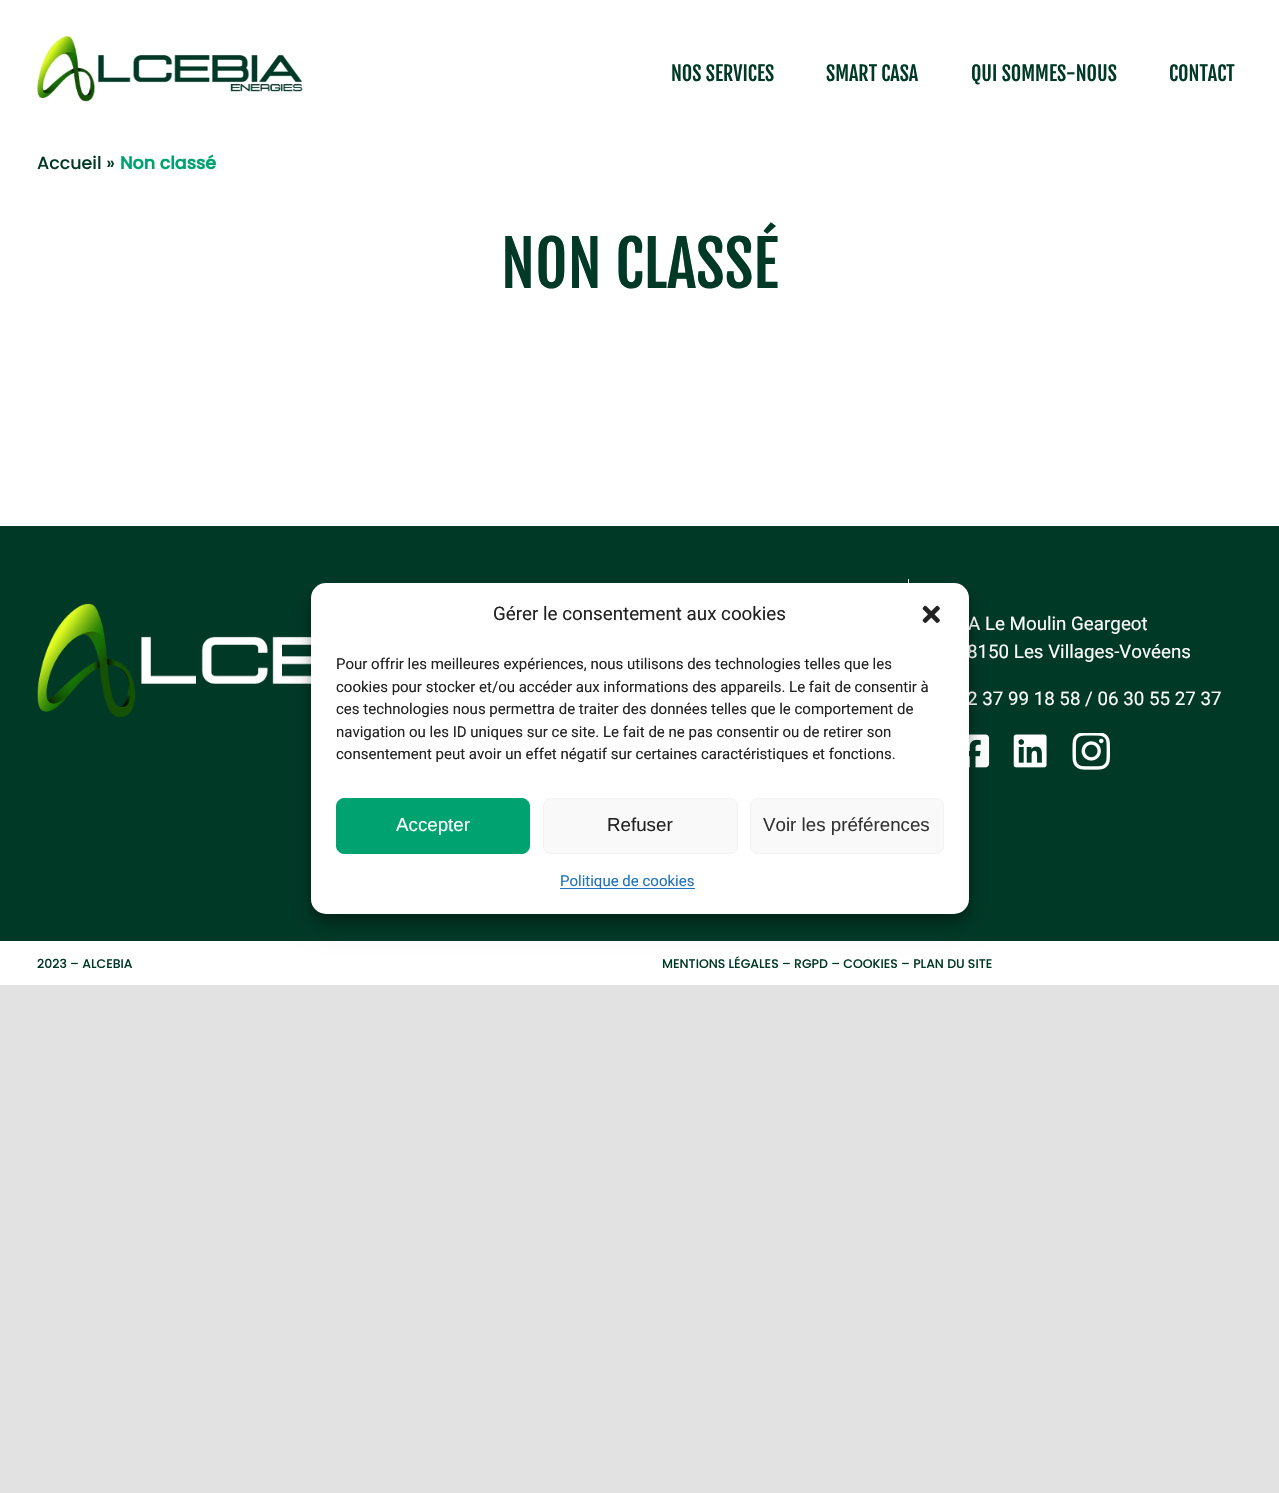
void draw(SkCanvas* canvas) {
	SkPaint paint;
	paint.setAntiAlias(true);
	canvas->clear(0xffe2e2e2);
	paint.setColor(0xffffffff);
	canvas->drawRect(SkRect::MakeXYWH(0, 0, 1279, 985), paint);
	canvas->drawImageRect(SkImages::DeferredFromEncodedData(SkData::MakeFromFileName("img1.png")), SkRect::MakeXYWH(37, 36, 266, 66), SkSamplingOptions());
	SkFont f1(fontMgr->matchFamilyStyle("Fjalla One", SkFontStyle::Normal()), 20);
	f1.setSubpixel(true);
	paint.setColor(0xff013927);
	canvas->drawString("NOS SERVICES", 671, 81, f1, paint);
	canvas->drawString("SMART CASA", 826, 81, f1, paint);
	canvas->drawString("QUI SOMMES-NOUS", 971, 81, f1, paint);
	canvas->drawString("CONTACT", 1169, 81, f1, paint);
	SkFont f2(fontMgr->matchFamilyStyle("Poppins", SkFontStyle(500, SkFontStyle::kNormal_Width, SkFontStyle::kUpright_Slant)), 17.5);
	f2.setSubpixel(true);
	canvas->drawString("Accueil »", 37, 169, f2, paint);
	SkFont f3(fontMgr->matchFamilyStyle("Poppins", SkFontStyle::Bold()), 17.5);
	f3.setSubpixel(true);
	paint.setColor(0xff00a370);
	canvas->drawString("Non classé", 120, 169, f3, paint);
	SkFont f4(fontMgr->matchFamilyStyle("Fjalla One", SkFontStyle::Normal()), 62.5);
	f4.setSubpixel(true);
	paint.setColor(0xff013927);
	canvas->drawString("NON CLASSÉ", 501, 288, f4, paint);
	canvas->drawRect(SkRect::MakeXYWH(0, 526, 1279, 415), paint);
	paint.setColor(0xffffffff);
	canvas->drawRect(SkRect::MakeXYWH(908, 579, 1, 4), paint);
	canvas->drawImageRect(SkImages::DeferredFromEncodedData(SkData::MakeFromFileName("img2.png")), SkRect::MakeXYWH(37, 603, 274, 114), SkSamplingOptions());
	SkFont f5(fontMgr->matchFamilyStyle("Roboto", SkFontStyle::Normal()), 18.75);
	f5.setSubpixel(true);
	canvas->drawString("A Le Moulin Geargeot", 968, 630, f5, paint);
	canvas->drawString("8150 Les Villages-Vovéens", 967, 658, f5, paint);
	canvas->drawString("2 37 99 18 58 / 06 30 55 27 37", 967, 705, f5, paint);
	canvas->drawImageRect(SkImages::DeferredFromEncodedData(SkData::MakeFromFileName("img3.png")), SkRect::MakeXYWH(969, 734, 21, 34), SkSamplingOptions());
	canvas->drawImageRect(SkImages::DeferredFromEncodedData(SkData::MakeFromFileName("img4.png")), SkRect::MakeXYWH(1013, 734, 34, 34), SkSamplingOptions());
	canvas->drawImageRect(SkImages::DeferredFromEncodedData(SkData::MakeFromFileName("img5.png")), SkRect::MakeXYWH(1072, 733, 38, 37), SkSamplingOptions());
	SkFont f6(fontMgr->matchFamilyStyle("Poppins", SkFontStyle(500, SkFontStyle::kNormal_Width, SkFontStyle::kUpright_Slant)), 12.5);
	f6.setSubpixel(true);
	paint.setColor(0xff013927);
	canvas->drawString("2023 – ALCEBIA", 37, 968, f6, paint);
	canvas->drawString("MENTIONS LÉGALES – RGPD – COOKIES – PLAN DU SITE", 662, 968, f6, paint);
	paint.setColor(0x3b000000);
	paint.setMaskFilter(SkMaskFilter::MakeBlur(kNormal_SkBlurStyle, 4));
	canvas->drawRoundRect(SkRect::MakeXYWH(311, 590, 658, 331), 15, 15, paint);
	paint.setMaskFilter(nullptr);
	paint.setColor(0x30000000);
	paint.setMaskFilter(SkMaskFilter::MakeBlur(kNormal_SkBlurStyle, 12.5));
	canvas->drawRoundRect(SkRect::MakeXYWH(311, 595, 658, 331), 15, 15, paint);
	paint.setMaskFilter(nullptr);
	paint.setColor(0xffffffff);
	canvas->drawRoundRect(SkRect::MakeXYWH(311, 583, 658, 331), 15, 15, paint);
	paint.setColor(0xff222222);
	canvas->drawString("Gérer le consentement aux cookies", 493, 620, f5, paint);
	canvas->drawImageRect(SkImages::DeferredFromEncodedData(SkData::MakeFromFileName("img6.png")), SkRect::MakeXYWH(922, 605, 18, 18), SkSamplingOptions());
	SkFont f7(fontMgr->matchFamilyStyle("Roboto", SkFontStyle::Normal()), 15);
	f7.setSubpixel(true);
	canvas->drawString("Pour offrir les meilleures expériences, nous utilisons des technologies telles que les", 336, 669, f7, paint);
	canvas->drawString("cookies pour stocker et/ou accéder aux informations des appareils. Le fait de consentir à", 336, 692, f7, paint);
	canvas->drawString("ces technologies nous permettra de traiter des données telles que le comportement de", 336, 714, f7, paint);
	canvas->drawString("navigation ou les ID uniques sur ce site. Le fait de ne pas consentir ou de retirer son", 336, 737, f7, paint);
	canvas->drawString("consentement peut avoir un effet négatif sur certaines caractéristiques et fonctions.", 336, 759, f7, paint);
	paint.setColor(0xff00a370);
	canvas->drawRoundRect(SkRect::MakeXYWH(336.5, 798.5, 193, 55), 7.5, 7.5, paint);
	paint.setStroke(true);
	paint.setStrokeWidth(1);
	canvas->drawRoundRect(SkRect::MakeXYWH(336.5, 798.5, 193, 55), 7.5, 7.5, paint);
	SkFont f8(fontMgr->matchFamilyStyle("Liberation Sans", SkFontStyle::Normal()), 18.75);
	f8.setSubpixel(true);
	paint.setStroke(false);
	paint.setColor(0xffffffff);
	canvas->drawString("Accepter", 396, 831, f8, paint);
	paint.setColor(0xfff9f9f9);
	canvas->drawRoundRect(SkRect::MakeXYWH(543.5, 798.5, 194, 55), 7.5, 7.5, paint);
	paint.setStroke(true);
	paint.setColor(0xfff2f2f2);
	canvas->drawRoundRect(SkRect::MakeXYWH(543.5, 798.5, 194, 55), 7.5, 7.5, paint);
	paint.setStroke(false);
	paint.setColor(0xff222222);
	canvas->drawString("Refuser", 607, 831, f8, paint);
	paint.setColor(0xfff9f9f9);
	canvas->drawRoundRect(SkRect::MakeXYWH(750.5, 798.5, 193, 55), 7.5, 7.5, paint);
	paint.setStroke(true);
	paint.setColor(0xfff2f2f2);
	canvas->drawRoundRect(SkRect::MakeXYWH(750.5, 798.5, 193, 55), 7.5, 7.5, paint);
	paint.setStroke(false);
	paint.setColor(0xff333333);
	canvas->drawString("Voir les préférences", 763, 831, f8, paint);
	paint.setColor(0xff1e73be);
	canvas->drawRect(SkRect::MakeXYWH(560, 888, 135, 1), paint);
	canvas->drawString("Politique de cookies", 560, 886, f7, paint);
}
